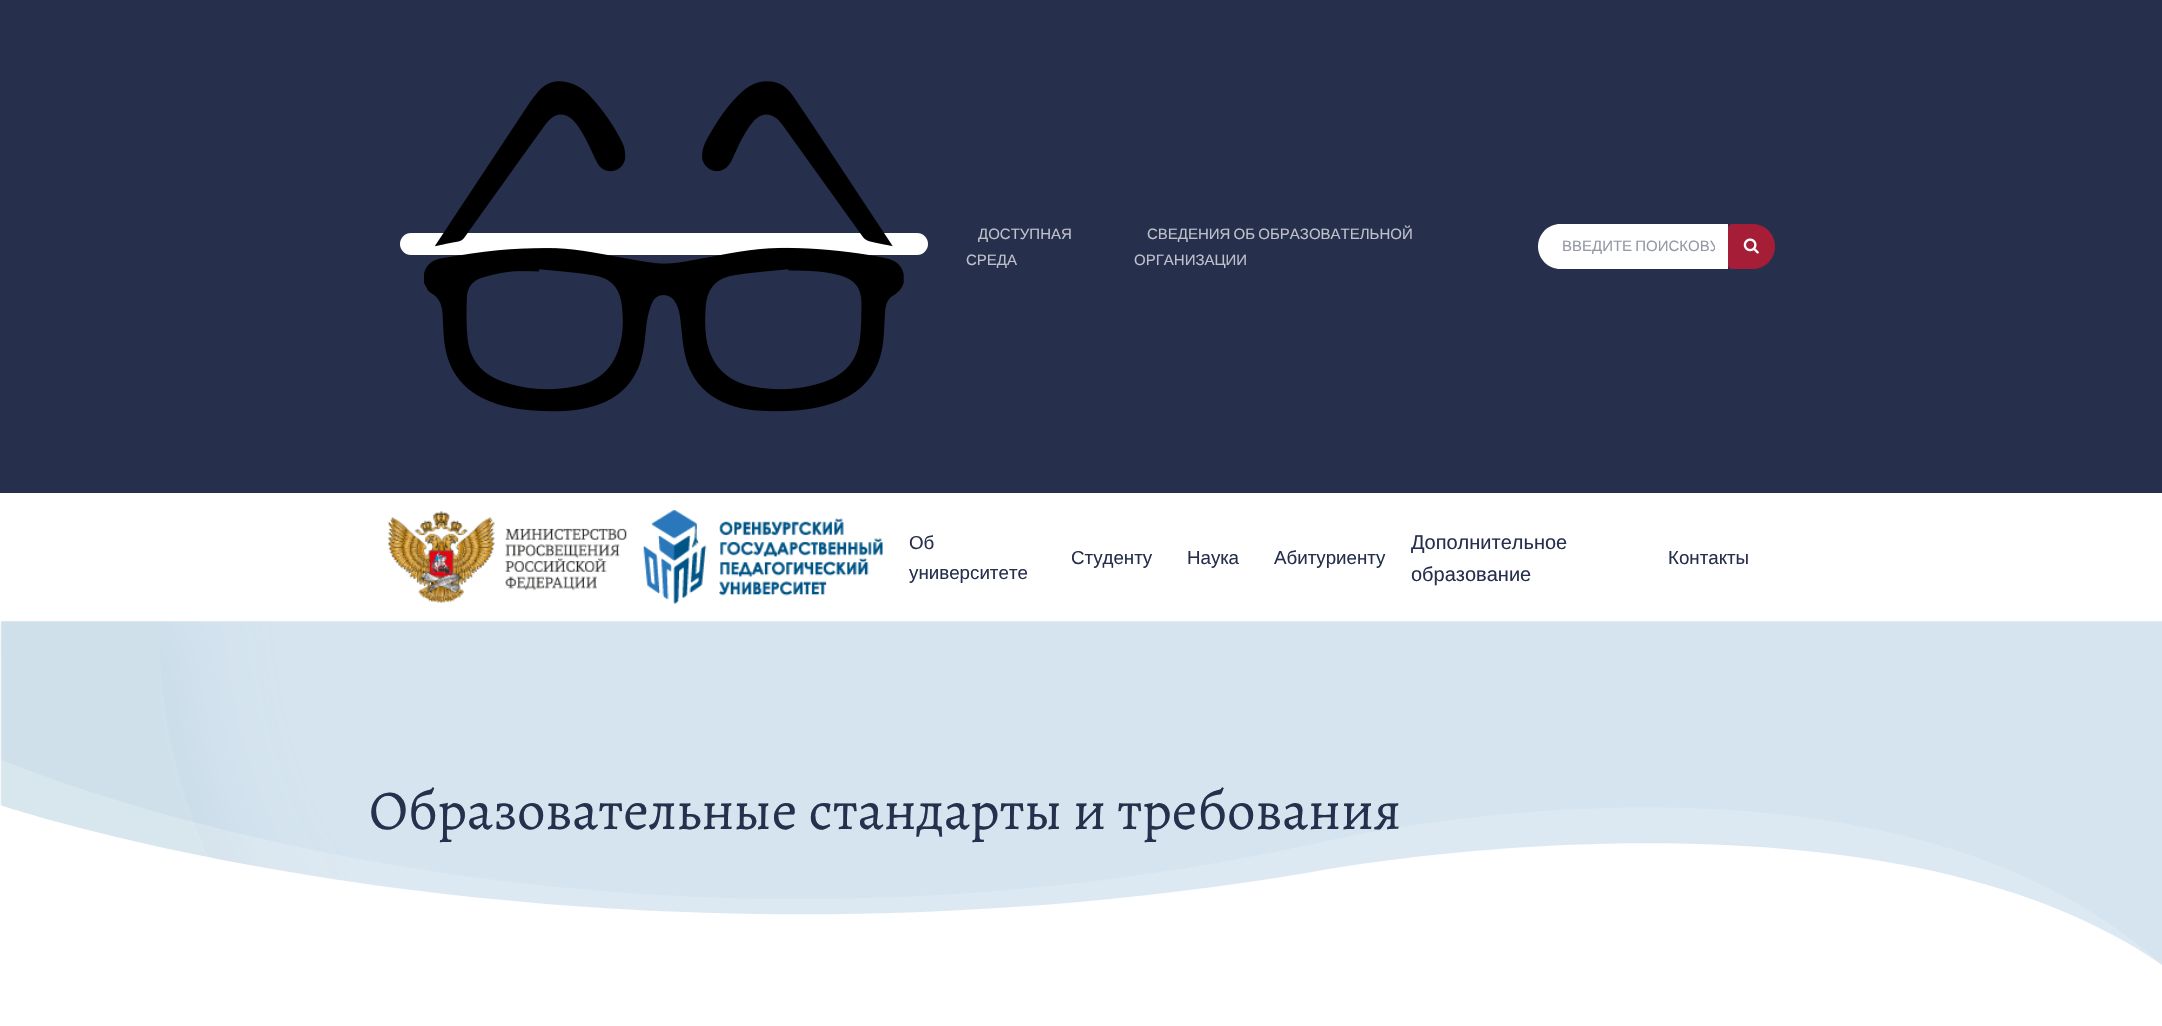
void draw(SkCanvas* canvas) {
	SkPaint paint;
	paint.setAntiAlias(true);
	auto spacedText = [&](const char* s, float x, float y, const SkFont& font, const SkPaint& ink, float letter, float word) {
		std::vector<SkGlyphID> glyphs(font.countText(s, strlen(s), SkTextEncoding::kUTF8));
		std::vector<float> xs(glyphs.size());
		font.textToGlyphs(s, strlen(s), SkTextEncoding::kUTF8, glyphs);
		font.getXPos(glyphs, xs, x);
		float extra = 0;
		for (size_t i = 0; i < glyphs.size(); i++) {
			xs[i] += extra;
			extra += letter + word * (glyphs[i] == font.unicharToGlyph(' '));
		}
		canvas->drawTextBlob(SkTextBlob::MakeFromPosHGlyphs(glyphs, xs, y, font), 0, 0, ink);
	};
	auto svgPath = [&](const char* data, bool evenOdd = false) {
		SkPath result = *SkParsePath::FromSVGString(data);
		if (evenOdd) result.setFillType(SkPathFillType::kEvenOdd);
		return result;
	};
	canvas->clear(0xffffffff);
	paint.setColor(0xff26304d);
	canvas->drawRect(SkRect::MakeXYWH(0, 0, 2162, 493), paint);
	paint.setColor(0xffffffff);
	canvas->drawRoundRect(SkRect::MakeXYWH(400, 233, 528, 22), 11, 11, paint);
	canvas->drawImageRect(SkImages::DeferredFromEncodedData(SkData::MakeFromFileName("img1.png")), SkRect::MakeXYWH(424, 81, 480, 331), SkSamplingOptions());
	SkFont f1(fontMgr->matchFamilyStyle("Liberation Sans", SkFontStyle::Normal()), 15);
	f1.setSubpixel(true);
	paint.setColor(0xffbec1ca);
	canvas->drawString("ДОСТУПНАЯ", 978, 239, f1, paint);
	canvas->drawString("СРЕДА", 966, 265, f1, paint);
	spacedText("СВЕДЕНИЯ ОБ ОБРАЗОВАТЕЛЬНОЙ", 1147, 239, f1, paint, 0, -1);
	canvas->drawString("ОРГАНИЗАЦИИ", 1134, 265, f1, paint);
	paint.setColor(0xffffffff);
	canvas->drawPath(svgPath("M1560.5 224H1728V269H1560.5C1548 269 1538 259 1538 246.5C1538 234 1548 224 1560.5 224Z"), paint);
	canvas->save();
	canvas->clipRect(SkRect::MakeXYWH(1563, 236, 152, 19));
	paint.setColor(0xff9398a6);
	spacedText("ВВЕДИТЕ ПОИСКОВУ", 1562, 251, f1, paint, 0, -1);
	canvas->restore();
	paint.setColor(0xffa61d37);
	canvas->drawPath(svgPath("M1732 224H1752.5C1765 224 1775 234 1775 246.5C1775 259 1765 269 1752.5 269H1732C1730 269 1728 267 1728 265V228C1728 226 1730 224 1732 224Z"), paint);
	canvas->drawImageRect(SkImages::DeferredFromEncodedData(SkData::MakeFromFileName("img2.png")), SkRect::MakeXYWH(1743, 238, 16, 16), SkSamplingOptions());
	canvas->drawImageRect(SkImages::DeferredFromEncodedData(SkData::MakeFromFileName("img3.png")), SkRect::MakeXYWH(387, 511, 240, 92), SkSamplingOptions());
	canvas->drawImageRect(SkImages::DeferredFromEncodedData(SkData::MakeFromFileName("img4.png")), SkRect::MakeXYWH(643, 510, 240, 94), SkSamplingOptions());
	SkFont f2(fontMgr->matchFamilyStyle("Liberation Sans", SkFontStyle::Normal()), 18.75);
	f2.setSubpixel(true);
	paint.setColor(0xff26304d);
	canvas->drawString("Об", 909, 549, f2, paint);
	canvas->drawString("университете", 909, 579, f2, paint);
	canvas->drawString("Студенту", 1071, 564, f2, paint);
	canvas->drawString("Наука", 1187, 564, f2, paint);
	canvas->drawString("Абитуриенту", 1274, 564, f2, paint);
	SkFont f3(fontMgr->matchFamilyStyle("Liberation Sans", SkFontStyle::Normal()), 20);
	f3.setSubpixel(true);
	canvas->drawString("Дополнительное", 1411, 549, f3, paint);
	canvas->drawString("образование", 1411, 581, f3, paint);
	canvas->drawString("Контакты", 1668, 564, f2, paint);
	canvas->drawImageRect(SkImages::DeferredFromEncodedData(SkData::MakeFromFileName("img5.png")), SkRect::MakeXYWH(0, 621, 2162, 344), SkSamplingOptions());
	SkFont f4(fontMgr->matchFamilyStyle("Alegreya", SkFontStyle::Normal()), 56.25);
	f4.setSubpixel(true);
	canvas->drawString("Образовательные стандарты и требования", 369, 829, f4, paint);
	paint.setColor(0xffffffff);
	canvas->drawPath(svgPath("M0 965V805C0 805 571 998 1318 871C1318 871 1878 766 2162 965Z"), paint);
	paint.setColor(0x33ffffff);
	canvas->drawPath(svgPath("M0 965V759C0 759 571 1007 1318 843C1318 843 1878 708 2162 965Z"), paint);
}
